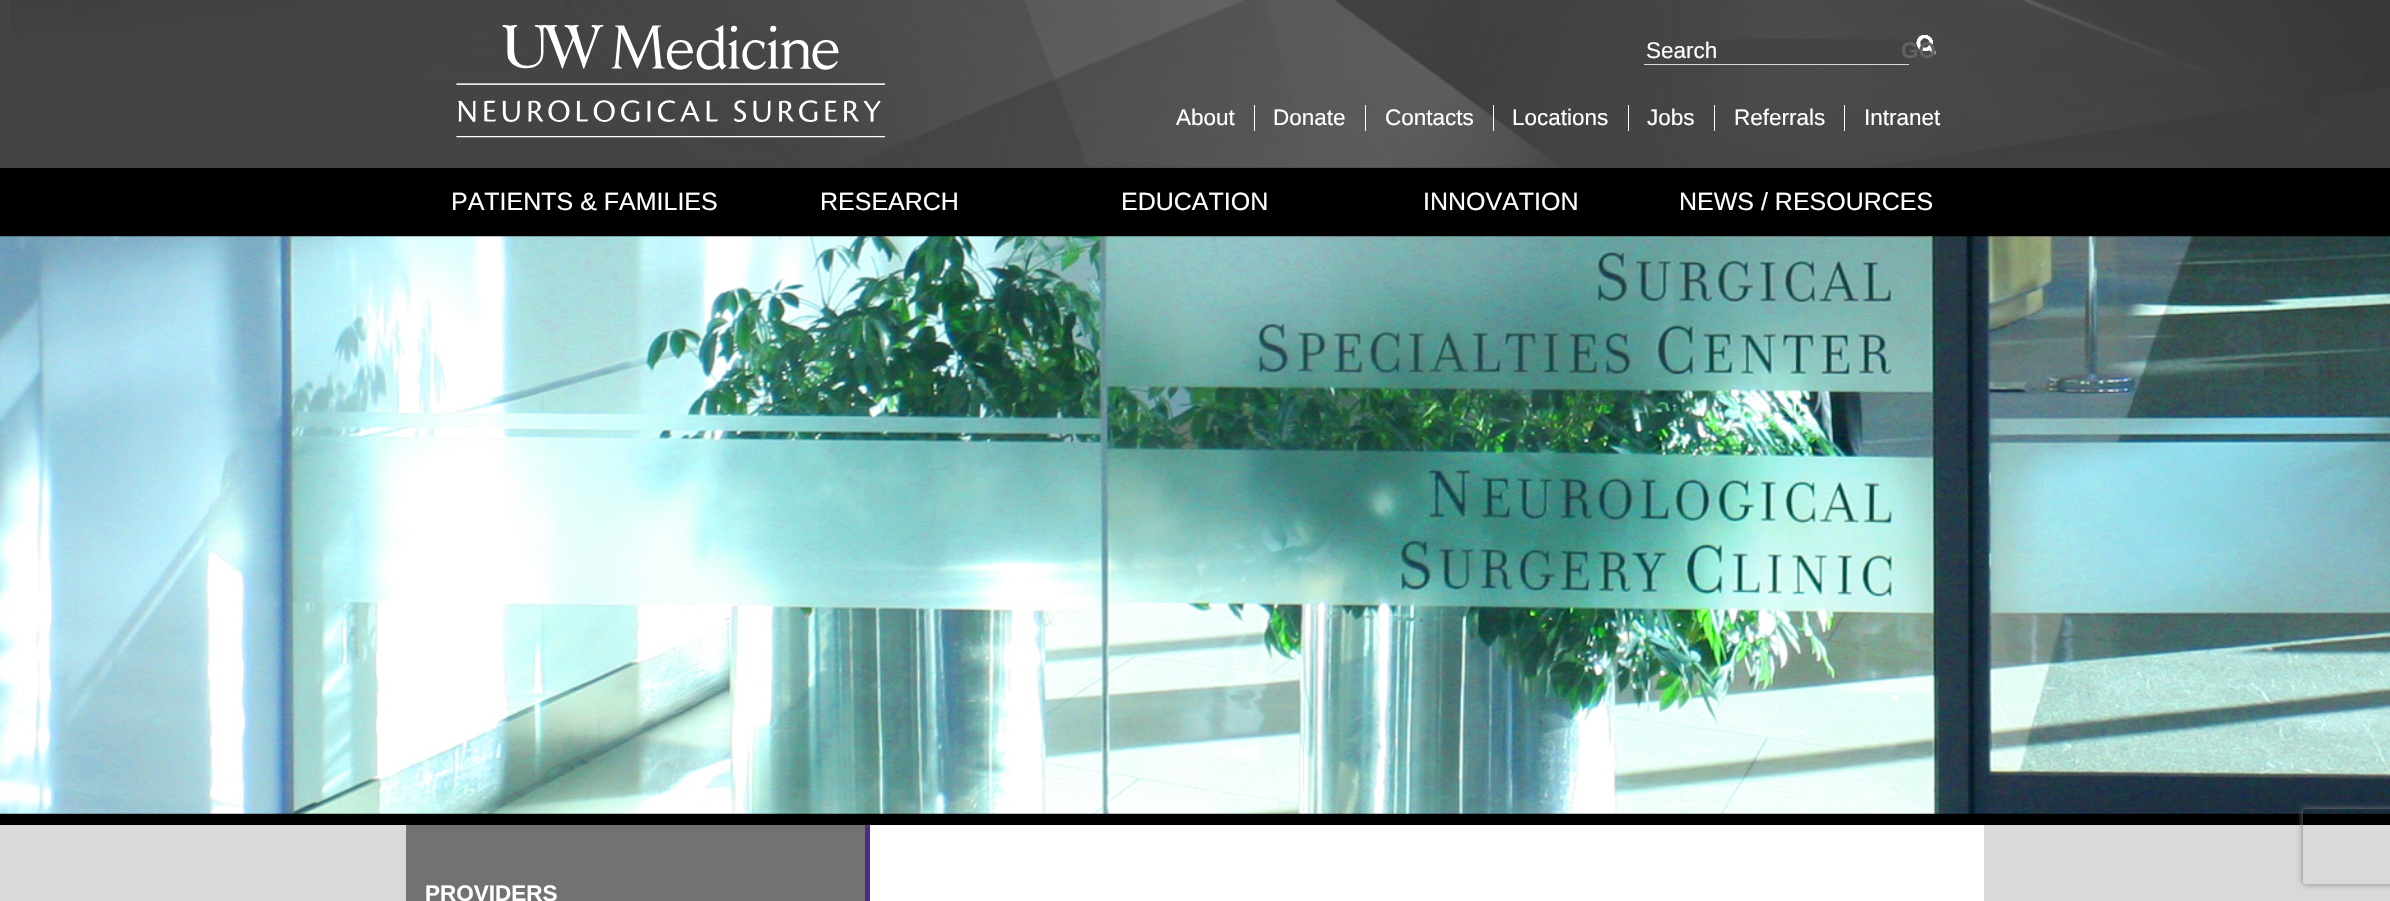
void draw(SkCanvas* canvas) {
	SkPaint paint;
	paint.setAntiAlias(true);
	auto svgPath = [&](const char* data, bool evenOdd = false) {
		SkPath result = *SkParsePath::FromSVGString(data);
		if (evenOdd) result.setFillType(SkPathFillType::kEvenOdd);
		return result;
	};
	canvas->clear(0xffd9d9d9);
	paint.setColor(0xff444444);
	canvas->drawRect(SkRect::MakeXYWH(0, 0, 2390, 168), paint);
	canvas->drawImageRect(SkImages::DeferredFromEncodedData(SkData::MakeFromFileName("img1.png")), SkRect::MakeXYWH(10, 0, 2380, 168), SkSamplingOptions());
	canvas->drawImageRect(SkImages::DeferredFromEncodedData(SkData::MakeFromFileName("img2.png")), SkRect::MakeXYWH(456, 25, 429, 113), SkSamplingOptions());
	canvas->drawRect(SkRect::MakeXYWH(1709, 39, 200, 25), paint);
	canvas->drawRect(SkRect::MakeXYWH(1909, 40, 5, 21), paint);
	paint.setColor(0xffd9d9d9);
	canvas->drawRect(SkRect::MakeXYWH(1644, 64, 265, 1), paint);
	SkFont f1(fontMgr->matchFamilyStyle("Liberation Sans", SkFontStyle::Normal()), 22.5);
	f1.setSubpixel(true);
	paint.setColor(0xffffffff);
	canvas->drawString("Search", 1646, 58, f1, paint);
	canvas->drawImageRect(SkImages::DeferredFromEncodedData(SkData::MakeFromFileName("img3.png")), SkRect::MakeXYWH(1916, 35, 20, 20), SkSamplingOptions());
	SkFont f2(fontMgr->matchFamilyStyle("Liberation Sans", SkFontStyle::Bold()), 22.5);
	f2.setSubpixel(true);
	paint.setColor(0xff626262);
	canvas->drawString("GO", 1901, 58, f2, paint);
	paint.setColor(0xffffffff);
	canvas->drawRect(SkRect::MakeXYWH(1254, 105, 1, 26), paint);
	canvas->drawString("About", 1176, 125, f1, paint);
	canvas->drawRect(SkRect::MakeXYWH(1365, 105, 1, 26), paint);
	canvas->drawString("Donate", 1273, 125, f1, paint);
	canvas->drawRect(SkRect::MakeXYWH(1493, 105, 1, 26), paint);
	canvas->drawString("Contacts", 1385, 125, f1, paint);
	canvas->drawRect(SkRect::MakeXYWH(1628, 105, 1, 26), paint);
	canvas->drawString("Locations", 1512, 125, f1, paint);
	canvas->drawRect(SkRect::MakeXYWH(1714, 105, 1, 26), paint);
	canvas->drawString("Jobs", 1647, 125, f1, paint);
	canvas->drawRect(SkRect::MakeXYWH(1844, 105, 1, 26), paint);
	canvas->drawString("Referrals", 1734, 125, f1, paint);
	canvas->drawString("Intranet", 1864, 125, f1, paint);
	paint.setColor(0xff000000);
	canvas->drawRect(SkRect::MakeXYWH(0, 168, 2390, 657), paint);
	SkFont f3(fontMgr->matchFamilyStyle("Liberation Sans", SkFontStyle::Normal()), 25);
	f3.setSubpixel(true);
	paint.setColor(0xffffffff);
	canvas->drawString("PATIENTS & FAMILIES", 451, 210, f3, paint);
	canvas->drawString("RESEARCH", 820, 210, f3, paint);
	canvas->drawString("EDUCATION", 1121, 210, f3, paint);
	canvas->drawString("INNOVATION", 1423, 210, f3, paint);
	canvas->drawString("NEWS / RESOURCES", 1679, 210, f3, paint);
	canvas->drawImageRect(SkImages::DeferredFromEncodedData(SkData::MakeFromFileName("img4.png")), SkRect::MakeXYWH(0, 236, 2390, 578), SkSamplingOptions());
	canvas->drawRect(SkRect::MakeXYWH(870, 825, 1114, 76), paint);
	paint.setColor(0xff727272);
	canvas->drawRect(SkRect::MakeXYWH(406, 825, 459, 76), paint);
	paint.setColor(0xff4b2e83);
	canvas->drawRect(SkRect::MakeXYWH(865, 825, 5, 76), paint);
	paint.setColor(0xffffffff);
	canvas->drawString("PROVIDERS", 425, 901, f2, paint);
	canvas->save();
	canvas->clipPath(svgPath("M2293 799H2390V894H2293ZM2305.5 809H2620.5C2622 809 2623 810 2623 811.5V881.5C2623 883 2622 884 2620.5 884H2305.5C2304 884 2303 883 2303 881.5V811.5C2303 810 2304 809 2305.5 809Z", true), true);
	paint.setColor(0xff808080);
	paint.setMaskFilter(SkMaskFilter::MakeBlur(kNormal_SkBlurStyle, 3));
	canvas->drawRoundRect(SkRect::MakeXYWH(2303, 809, 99, 75), 2.5, 2.5, paint);
	paint.setMaskFilter(nullptr);
	canvas->restore();
}
